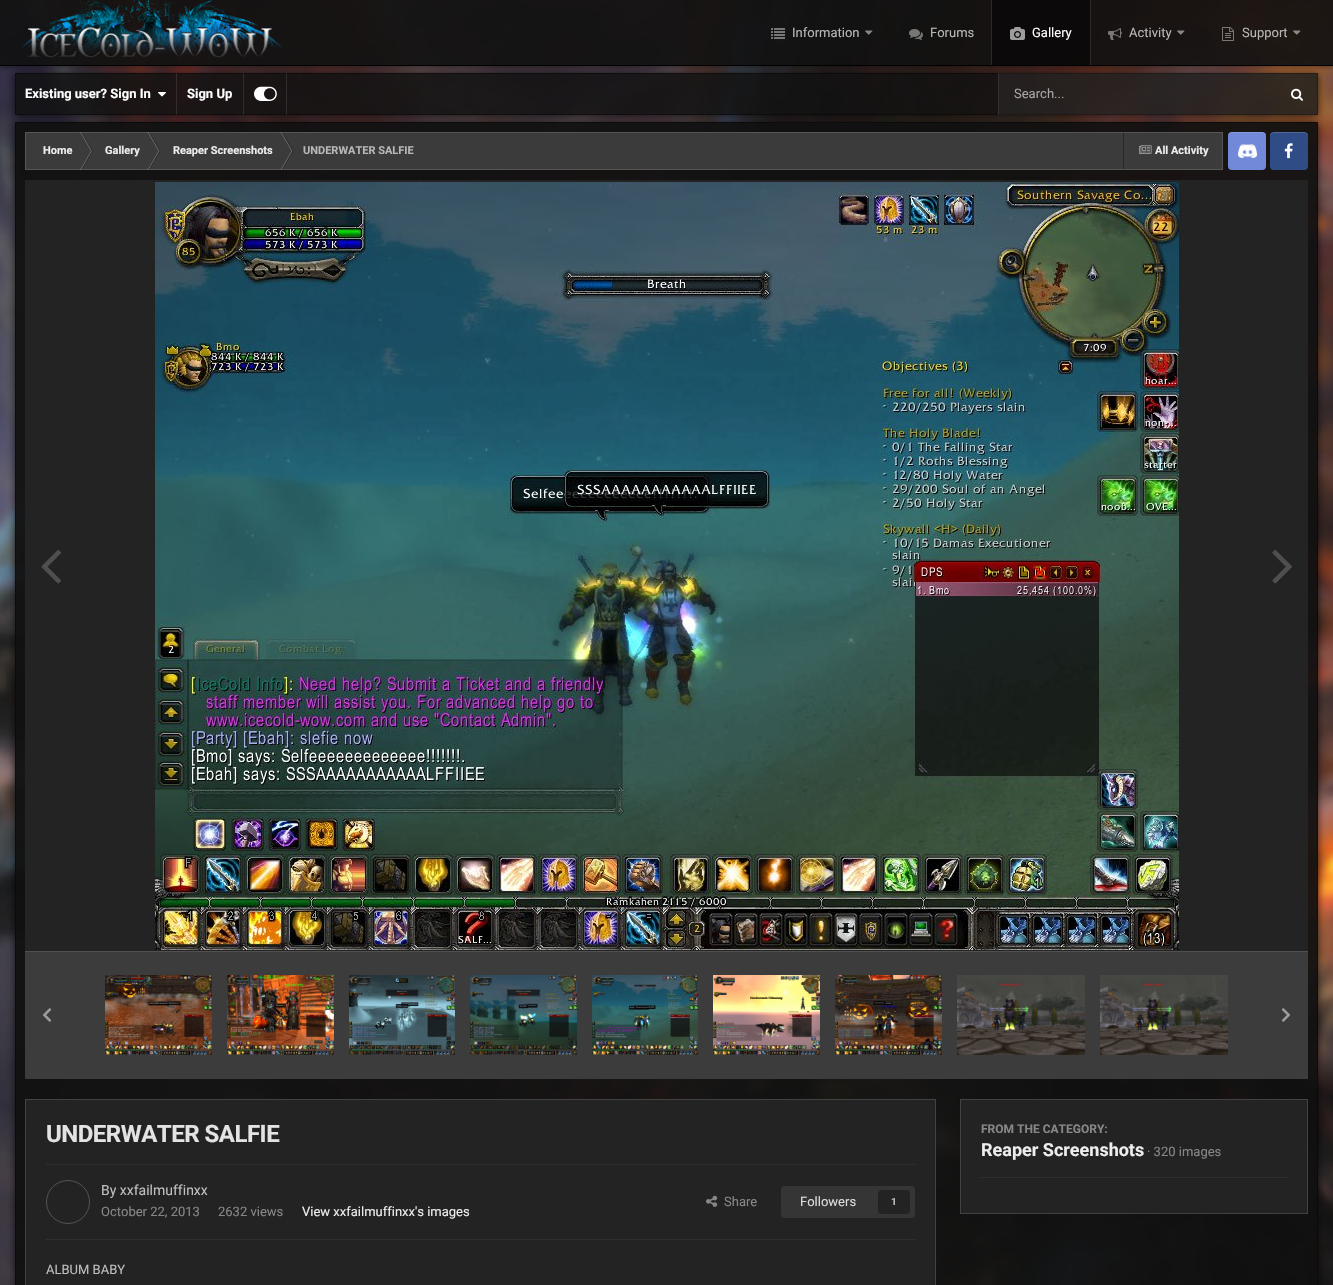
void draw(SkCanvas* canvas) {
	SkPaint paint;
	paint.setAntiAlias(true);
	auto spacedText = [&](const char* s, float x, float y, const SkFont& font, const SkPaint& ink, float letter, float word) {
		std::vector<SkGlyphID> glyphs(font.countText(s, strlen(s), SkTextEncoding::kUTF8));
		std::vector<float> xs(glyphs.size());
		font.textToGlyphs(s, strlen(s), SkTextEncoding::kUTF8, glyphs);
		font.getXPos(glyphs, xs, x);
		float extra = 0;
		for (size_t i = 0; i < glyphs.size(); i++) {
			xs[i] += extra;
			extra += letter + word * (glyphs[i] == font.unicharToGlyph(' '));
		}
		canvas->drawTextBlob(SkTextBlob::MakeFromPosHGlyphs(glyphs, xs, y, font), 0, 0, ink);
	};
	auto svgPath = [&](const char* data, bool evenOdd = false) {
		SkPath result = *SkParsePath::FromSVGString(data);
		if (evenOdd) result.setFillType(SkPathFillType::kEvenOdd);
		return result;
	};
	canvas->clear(0xffffffff);
	canvas->drawImageRect(SkImages::DeferredFromEncodedData(SkData::MakeFromFileName("img1.png")), SkRect::MakeXYWH(0, 0, 1333, 1285), SkSamplingOptions());
	canvas->save();
	canvas->clipPath(svgPath("M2 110H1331V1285H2ZM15 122H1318V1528H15Z", true), true);
	paint.setColor(0xb3000000);
	paint.setMaskFilter(SkMaskFilter::MakeBlur(kNormal_SkBlurStyle, 4));
	canvas->drawRect(SkRect::MakeXYWH(15, 123, 1303, 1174), paint);
	paint.setMaskFilter(nullptr);
	canvas->restore();
	paint.setColor(0xed0f0f0f);
	canvas->drawRect(SkRect::MakeXYWH(15, 122, 1303, 1163), paint);
	paint.setStroke(true);
	paint.setStrokeWidth(1);
	paint.setColor(0x66000000);
	canvas->drawRect(SkRect::MakeXYWH(15.5, 122.5, 1302, 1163), paint);
	canvas->save();
	canvas->clipPath(svgPath("M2 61H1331V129H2ZM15 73H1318V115H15Z", true), true);
	paint.setStroke(false);
	paint.setColor(0xb3000000);
	paint.setMaskFilter(SkMaskFilter::MakeBlur(kNormal_SkBlurStyle, 4));
	canvas->drawRect(SkRect::MakeXYWH(15, 74, 1303, 42), paint);
	paint.setMaskFilter(nullptr);
	canvas->restore();
	paint.setColor(0xd60f0f0f);
	canvas->drawRect(SkRect::MakeXYWH(15, 73, 1303, 42), paint);
	paint.setStroke(true);
	paint.setColor(0x66000000);
	canvas->drawRect(SkRect::MakeXYWH(15.5, 73.5, 1302, 41), paint);
	paint.setStroke(false);
	paint.setColor(0x1affffff);
	canvas->drawRect(SkRect::MakeXYWH(176, 73, 1, 42), paint);
	canvas->drawRect(SkRect::MakeXYWH(243, 73, 1, 42), paint);
	canvas->drawRect(SkRect::MakeXYWH(286, 73, 1, 42), paint);
	paint.setColor(0x0dffffff);
	canvas->drawRect(SkRect::MakeXYWH(998, 73, 320, 42), paint);
	paint.setColor(0x14ffffff);
	canvas->drawRect(SkRect::MakeXYWH(998, 73, 1, 42), paint);
	canvas->save();
	canvas->clipRect(SkRect::MakeXYWH(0, 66, 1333, 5));
	paint.setColor(0x66000000);
	paint.setMaskFilter(SkMaskFilter::MakeBlur(kNormal_SkBlurStyle, 2.5));
	canvas->drawRect(SkRect::MakeXYWH(0, 1, 1333, 66), paint);
	paint.setMaskFilter(nullptr);
	canvas->restore();
	paint.setColor(0xe60f0f0f);
	canvas->drawRect(SkRect::MakeXYWH(0, 0, 1333, 65), paint);
	paint.setColor(0xff000000);
	canvas->drawRect(SkRect::MakeXYWH(0, 65, 1333, 1), paint);
	canvas->drawImageRect(SkImages::DeferredFromEncodedData(SkData::MakeFromFileName("img2.png")), SkRect::MakeXYWH(21, 0, 262, 57), SkSamplingOptions());
	canvas->drawImageRect(SkImages::DeferredFromEncodedData(SkData::MakeFromFileName("img3.png")), SkRect::MakeXYWH(771, 28, 14, 11), SkSamplingOptions());
	SkFont f1(fontMgr->matchFamilyStyle("Roboto", SkFontStyle::Normal()), 13);
	f1.setSubpixel(true);
	paint.setColor(0xffb8b8b8);
	canvas->drawString("Information", 792, 37, f1, paint);
	canvas->drawImageRect(SkImages::DeferredFromEncodedData(SkData::MakeFromFileName("img4.png")), SkRect::MakeXYWH(865, 30, 8, 5), SkSamplingOptions());
	canvas->drawImageRect(SkImages::DeferredFromEncodedData(SkData::MakeFromFileName("img5.png")), SkRect::MakeXYWH(909, 29, 14, 11), SkSamplingOptions());
	canvas->drawString("Forums", 930, 37, f1, paint);
	paint.setColor(0xff2c2928);
	canvas->drawRect(SkRect::MakeXYWH(991, 0, 1, 65), paint);
	paint.setColor(0xff2d2928);
	canvas->drawRect(SkRect::MakeXYWH(1090, 0, 1, 65), paint);
	paint.setColor(0x80000000);
	canvas->drawRect(SkRect::MakeXYWH(992, 0, 98, 65), paint);
	canvas->drawImageRect(SkImages::DeferredFromEncodedData(SkData::MakeFromFileName("img6.png")), SkRect::MakeXYWH(1010, 27, 15, 13), SkSamplingOptions());
	paint.setColor(0xffffffff);
	canvas->drawString("Gallery", 1032, 37, f1, paint);
	canvas->drawImageRect(SkImages::DeferredFromEncodedData(SkData::MakeFromFileName("img7.png")), SkRect::MakeXYWH(1108, 28, 14, 12), SkSamplingOptions());
	paint.setColor(0xffb8b8b8);
	canvas->drawString("Activity", 1129, 37, f1, paint);
	canvas->drawImageRect(SkImages::DeferredFromEncodedData(SkData::MakeFromFileName("img8.png")), SkRect::MakeXYWH(1177, 30, 8, 5), SkSamplingOptions());
	canvas->drawImageRect(SkImages::DeferredFromEncodedData(SkData::MakeFromFileName("img9.png")), SkRect::MakeXYWH(1222, 27, 12, 14), SkSamplingOptions());
	canvas->drawString("Support", 1242, 37, f1, paint);
	canvas->drawImageRect(SkImages::DeferredFromEncodedData(SkData::MakeFromFileName("img10.png")), SkRect::MakeXYWH(1293, 30, 8, 5), SkSamplingOptions());
	SkFont f2(fontMgr->matchFamilyStyle("Roboto", SkFontStyle::Bold()), 13);
	f2.setSubpixel(true);
	paint.setColor(0xffffffff);
	canvas->drawString("Existing user? Sign In", 25, 98, f2, paint);
	canvas->drawImageRect(SkImages::DeferredFromEncodedData(SkData::MakeFromFileName("img11.png")), SkRect::MakeXYWH(158, 92, 8, 5), SkSamplingOptions());
	canvas->drawString("Sign Up", 187, 98, f2, paint);
	canvas->drawImageRect(SkImages::DeferredFromEncodedData(SkData::MakeFromFileName("img12.png")), SkRect::MakeXYWH(254, 86, 23, 15), SkSamplingOptions());
	paint.setColor(0xffa7a6a5);
	canvas->drawString("Search...", 1014, 98, f1, paint);
	canvas->drawImageRect(SkImages::DeferredFromEncodedData(SkData::MakeFromFileName("img13.png")), SkRect::MakeXYWH(1291, 88, 12, 13), SkSamplingOptions());
	paint.setColor(0xff3b3b3b);
	canvas->drawRect(SkRect::MakeXYWH(25, 132, 1198, 38), paint);
	paint.setColor(0xff6c6c6c);
	canvas->drawPath(svgPath("M80 132H81L92 151H91Z"), paint);
	paint.setColor(0x4d000000);
	canvas->drawPath(svgPath("M81 132H82L93 151H92Z"), paint);
	paint.setColor(0xff6c6c6c);
	canvas->drawPath(svgPath("M80 170H81L92 151H91Z"), paint);
	paint.setColor(0x4d000000);
	canvas->drawPath(svgPath("M81 170H82L93 151H92Z"), paint);
	paint.setColor(0xff6c6c6c);
	canvas->drawPath(svgPath("M147.5 132H148.5L159.5 151H158.5Z"), paint);
	paint.setColor(0x4d000000);
	canvas->drawPath(svgPath("M148.5 132H149.5L160.5 151H159.5Z"), paint);
	paint.setColor(0xff6c6c6c);
	canvas->drawPath(svgPath("M147.5 170H148.5L159.5 151H158.5Z"), paint);
	paint.setColor(0x4d000000);
	canvas->drawPath(svgPath("M148.5 170H149.5L160.5 151H159.5Z"), paint);
	paint.setColor(0xff6c6c6c);
	canvas->drawPath(svgPath("M280.5 132H281.5L292.5 151H291.5Z"), paint);
	paint.setColor(0x4d000000);
	canvas->drawPath(svgPath("M281.5 132H282.5L293.5 151H292.5Z"), paint);
	paint.setColor(0xff6c6c6c);
	canvas->drawPath(svgPath("M280.5 170H281.5L292.5 151H291.5Z"), paint);
	paint.setColor(0x4d000000);
	canvas->drawPath(svgPath("M281.5 170H282.5L293.5 151H292.5Z"), paint);
	paint.setColor(0xff292929);
	canvas->drawRect(SkRect::MakeXYWH(1123, 132, 1, 38), paint);
	canvas->drawImageRect(SkImages::DeferredFromEncodedData(SkData::MakeFromFileName("img14.png")), SkRect::MakeXYWH(1139, 145, 13, 9), SkSamplingOptions());
	paint.setStroke(true);
	paint.setColor(0x33bfbfbf);
	canvas->drawRect(SkRect::MakeXYWH(25.5, 132.5, 1197, 37), paint);
	SkFont f3(fontMgr->matchFamilyStyle("Roboto", SkFontStyle::Bold()), 11);
	f3.setSubpixel(true);
	paint.setStroke(false);
	paint.setColor(0xffededed);
	canvas->drawString("Home", 43, 154, f3, paint);
	canvas->drawString("Gallery", 105, 154, f3, paint);
	canvas->drawString("Reaper Screenshots", 173, 154, f3, paint);
	paint.setColor(0xffb8b8b8);
	canvas->drawString("UNDERWATER SALFIE", 303, 154, f3, paint);
	paint.setColor(0xffededed);
	canvas->drawString("All Activity", 1155, 154, f3, paint);
	paint.setColor(0xff7289da);
	canvas->drawRoundRect(SkRect::MakeXYWH(1228, 132, 38, 38), 4, 4, paint);
	paint.setColor(0x26ffffff);
	canvas->drawPath(svgPath("M1232 133C1230 133 1228 135 1228 137C1228 131 1232.5 132 1237 132H1257C1261.5 132 1266 131 1266 137C1266 135 1264 133 1262 133Z"), paint);
	canvas->drawImageRect(SkImages::DeferredFromEncodedData(SkData::MakeFromFileName("img15.png")), SkRect::MakeXYWH(1238, 144, 19, 14), SkSamplingOptions());
	paint.setColor(0xff304c87);
	canvas->drawRoundRect(SkRect::MakeXYWH(1270, 132, 38, 38), 4, 4, paint);
	paint.setColor(0x26ffffff);
	canvas->drawPath(svgPath("M1274 133C1272 133 1270 135 1270 137C1270 131 1274.5 132 1279 132H1299C1303.5 132 1308 131 1308 137C1308 135 1306 133 1304 133Z"), paint);
	canvas->drawImageRect(SkImages::DeferredFromEncodedData(SkData::MakeFromFileName("img16.png")), SkRect::MakeXYWH(1284, 143, 9, 16), SkSamplingOptions());
	paint.setColor(0xff232323);
	canvas->drawRect(SkRect::MakeXYWH(25, 180, 1283, 771), paint);
	canvas->drawImageRect(SkImages::DeferredFromEncodedData(SkData::MakeFromFileName("img17.png")), SkRect::MakeXYWH(155, 182, 1024, 768), SkSamplingOptions());
	canvas->drawImageRect(SkImages::DeferredFromEncodedData(SkData::MakeFromFileName("img18.png")), SkRect::MakeXYWH(41, 550, 20, 34), SkSamplingOptions());
	canvas->drawImageRect(SkImages::DeferredFromEncodedData(SkData::MakeFromFileName("img19.png")), SkRect::MakeXYWH(1272, 550, 20, 34), SkSamplingOptions());
	paint.setColor(0xff3c3c3c);
	canvas->drawRect(SkRect::MakeXYWH(25, 952, 1283, 127), paint);
	paint.setColor(0xff505050);
	canvas->drawRect(SkRect::MakeXYWH(25, 951, 1283, 1), paint);
	canvas->drawImageRect(SkImages::DeferredFromEncodedData(SkData::MakeFromFileName("img20.png")), SkRect::MakeXYWH(105, 975, 107, 80), SkSamplingOptions());
	canvas->drawImageRect(SkImages::DeferredFromEncodedData(SkData::MakeFromFileName("img21.png")), SkRect::MakeXYWH(227, 975, 107, 80), SkSamplingOptions());
	canvas->drawImageRect(SkImages::DeferredFromEncodedData(SkData::MakeFromFileName("img22.png")), SkRect::MakeXYWH(349, 975, 106, 80), SkSamplingOptions());
	canvas->drawImageRect(SkImages::DeferredFromEncodedData(SkData::MakeFromFileName("img23.png")), SkRect::MakeXYWH(470, 975, 107, 80), SkSamplingOptions());
	canvas->drawImageRect(SkImages::DeferredFromEncodedData(SkData::MakeFromFileName("img24.png")), SkRect::MakeXYWH(592, 975, 106, 80), SkSamplingOptions());
	canvas->drawImageRect(SkImages::DeferredFromEncodedData(SkData::MakeFromFileName("img25.png")), SkRect::MakeXYWH(713, 975, 107, 80), SkSamplingOptions());
	canvas->drawImageRect(SkImages::DeferredFromEncodedData(SkData::MakeFromFileName("img26.png")), SkRect::MakeXYWH(835, 975, 107, 80), SkSamplingOptions());
	canvas->drawImageRect(SkImages::DeferredFromEncodedData(SkData::MakeFromFileName("img27.png")), SkRect::MakeXYWH(957, 975, 128, 80), SkSamplingOptions());
	canvas->drawImageRect(SkImages::DeferredFromEncodedData(SkData::MakeFromFileName("img27.png")), SkRect::MakeXYWH(1100, 975, 128, 80), SkSamplingOptions());
	canvas->drawImageRect(SkImages::DeferredFromEncodedData(SkData::MakeFromFileName("img28.png")), SkRect::MakeXYWH(43, 1008, 9, 14), SkSamplingOptions());
	canvas->drawImageRect(SkImages::DeferredFromEncodedData(SkData::MakeFromFileName("img29.png")), SkRect::MakeXYWH(1281, 1008, 9, 14), SkSamplingOptions());
	paint.setColor(0xff232323);
	canvas->drawRect(SkRect::MakeXYWH(25.5, 1099.5, 910, 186), paint);
	paint.setStroke(true);
	paint.setColor(0xff424242);
	canvas->drawRect(SkRect::MakeXYWH(25.5, 1099.5, 910, 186), paint);
	SkFont f4(fontMgr->matchFamilyStyle("Roboto", SkFontStyle::Bold()), 24);
	f4.setSubpixel(true);
	paint.setStroke(false);
	paint.setColor(0xffe3e3e3);
	spacedText("UNDERWATER SALFIE", 46, 1142, f4, paint, -0.5, 0);
	paint.setColor(0xff2f2f2f);
	canvas->drawRect(SkRect::MakeXYWH(46, 1164, 869, 1), paint);
	paint.setStroke(true);
	paint.setColor(0xff525252);
	canvas->drawCircle(68, 1202, 21.5, paint);
	SkFont f5(fontMgr->matchFamilyStyle("Roboto", SkFontStyle::Normal()), 14);
	f5.setSubpixel(true);
	paint.setStroke(false);
	paint.setColor(0xffbfbfbf);
	canvas->drawString("By xxfailmuffinxx", 101, 1195, f5, paint);
	paint.setColor(0xff878787);
	canvas->drawString("October 22, 2013", 101, 1216, f1, paint);
	canvas->drawString("2632 views", 218, 1216, f1, paint);
	paint.setColor(0xffededed);
	canvas->drawString("View xxfailmuffinxx's images", 302, 1216, f1, paint);
	canvas->drawImageRect(SkImages::DeferredFromEncodedData(SkData::MakeFromFileName("img30.png")), SkRect::MakeXYWH(706, 1195, 12, 12), SkSamplingOptions());
	paint.setColor(0xff878787);
	canvas->drawString("Share", 724, 1206, f1, paint);
	paint.setColor(0xff353535);
	canvas->drawRoundRect(SkRect::MakeXYWH(781, 1186, 134, 32), 4, 4, paint);
	paint.setColor(0xffdddddd);
	canvas->drawString("Followers", 800, 1206, f1, paint);
	paint.setColor(0xff232323);
	canvas->drawRoundRect(SkRect::MakeXYWH(878, 1190, 32, 24), 4, 4, paint);
	SkFont f6(fontMgr->matchFamilyStyle("Roboto", SkFontStyle::Bold()), 10);
	f6.setSubpixel(true);
	paint.setColor(0xffbfbfbf);
	canvas->drawString("1", 891, 1205, f6, paint);
	paint.setColor(0xff2f2f2f);
	canvas->drawRect(SkRect::MakeXYWH(46, 1239, 869, 1), paint);
	paint.setColor(0xffbfbfbf);
	canvas->drawString("ALBUM BABY", 46, 1274, f1, paint);
	paint.setColor(0xff232323);
	canvas->drawRect(SkRect::MakeXYWH(960.5, 1099.5, 347, 114), paint);
	paint.setStroke(true);
	paint.setColor(0xff424242);
	canvas->drawRect(SkRect::MakeXYWH(960.5, 1099.5, 347, 114), paint);
	SkFont f7(fontMgr->matchFamilyStyle("Roboto", SkFontStyle::Bold()), 12);
	f7.setSubpixel(true);
	paint.setStroke(false);
	paint.setColor(0xff878787);
	canvas->drawString("FROM THE CATEGORY:", 981, 1133, f7, paint);
	SkFont f8(fontMgr->matchFamilyStyle("Roboto", SkFontStyle::Bold()), 18);
	f8.setSubpixel(true);
	paint.setColor(0xffededed);
	canvas->drawString("Reaper Screenshots", 981, 1156, f8, paint);
	paint.setColor(0xff878787);
	canvas->drawString("· 320 images", 1147, 1156, f1, paint);
	paint.setColor(0xff2f2f2f);
	canvas->drawRect(SkRect::MakeXYWH(981, 1177, 306, 1), paint);
}
